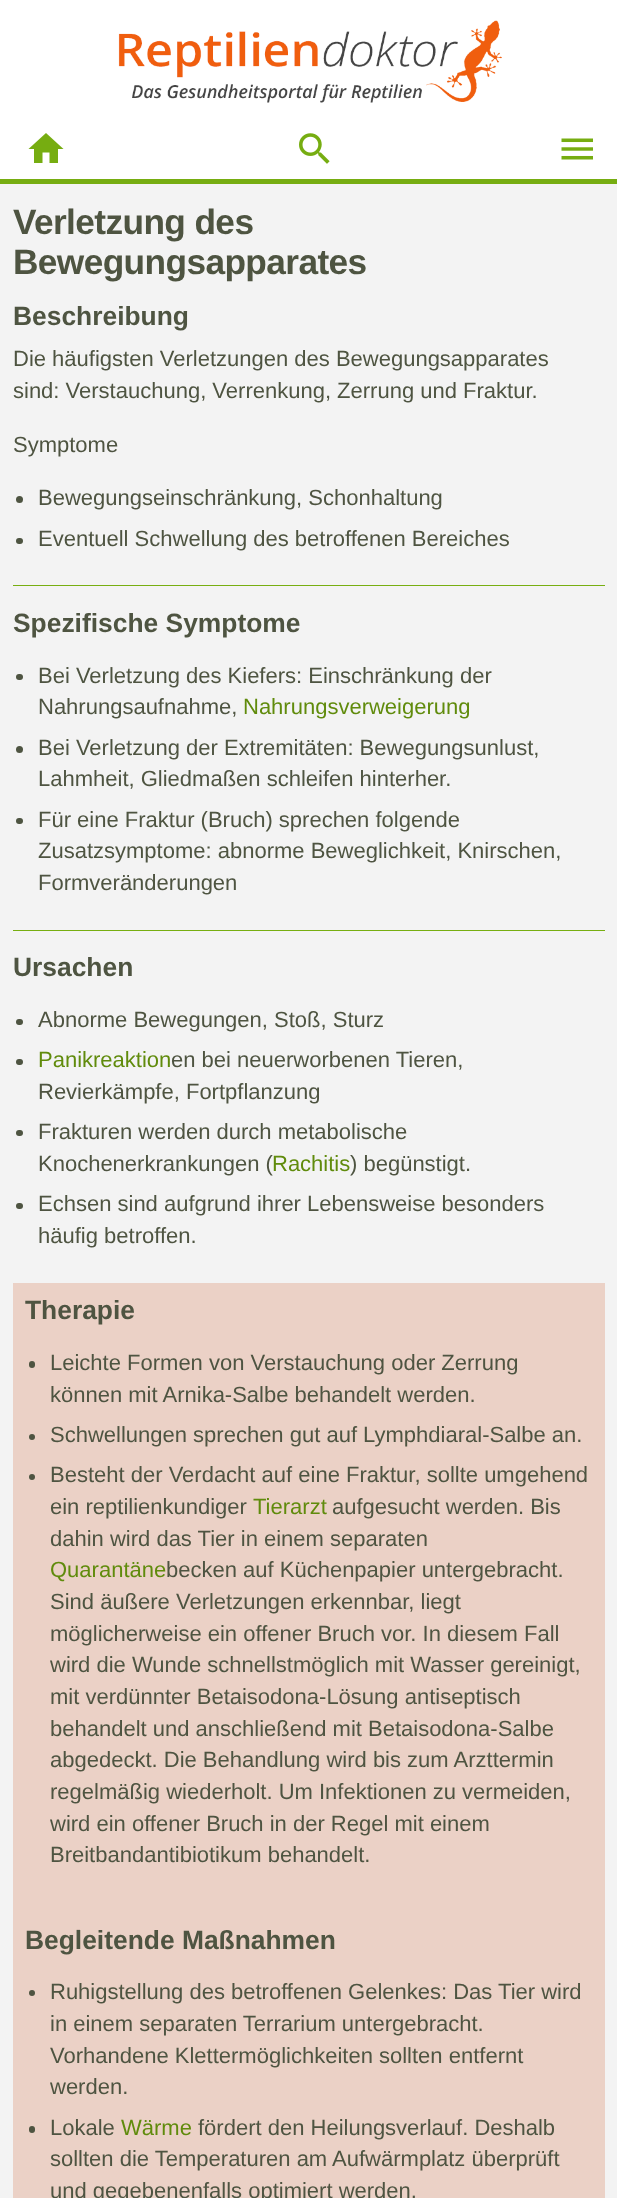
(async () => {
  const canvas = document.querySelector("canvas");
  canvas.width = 617;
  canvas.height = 2198;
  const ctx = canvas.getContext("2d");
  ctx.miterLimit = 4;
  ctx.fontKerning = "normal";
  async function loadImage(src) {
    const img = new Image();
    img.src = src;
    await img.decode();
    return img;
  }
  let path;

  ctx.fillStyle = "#ffffff";
  ctx.fillRect(0, 0, 617, 2198);
  ctx.drawImage(await loadImage("img/1.png"), 118, 20, 384, 83);
  ctx.fillStyle = "#76ad11";
  ctx.fillRect(0, 179, 617, 5);
  path = new Path2D("M42.5 163H34V149H28.5L46 133L63.5 149H58V163H49.5V152.5H42.5Z");
  ctx.fill(path);
  ctx.drawImage(await loadImage("img/2.png"), 299, 133, 31, 31);
  ctx.drawImage(await loadImage("img/3.png"), 561, 138, 32, 22);
  ctx.fillStyle = "#f3f3f3";
  ctx.fillRect(0, 184, 617, 2014);
  ctx.fillStyle = "#4e5441";
  ctx.beginPath();
  ctx.arc(19.5, 499.5, 3.5, 0, Math.PI * 2);
  ctx.fill();
  ctx.beginPath();
  ctx.roundRect(16, 538, 7, 6, 3);
  ctx.fill();
  ctx.fillStyle = "#77ae11";
  ctx.fillRect(13, 585, 592, 1);
  ctx.fillStyle = "#4e5441";
  ctx.beginPath();
  ctx.roundRect(16, 674, 7, 6, 3);
  ctx.fill();
  ctx.beginPath();
  ctx.arc(19.5, 749.5, 3.5, 0, Math.PI * 2);
  ctx.fill();
  ctx.beginPath();
  ctx.roundRect(16, 818, 7, 6, 3);
  ctx.fill();
  ctx.fillStyle = "#77ae11";
  ctx.fillRect(13, 930, 592, 1);
  ctx.fillStyle = "#4e5441";
  ctx.beginPath();
  ctx.roundRect(16, 1019, 7, 6, 3);
  ctx.fill();
  ctx.beginPath();
  ctx.roundRect(16, 1059, 7, 6, 3);
  ctx.fill();
  ctx.beginPath();
  ctx.roundRect(16, 1130, 7, 6, 3);
  ctx.fill();
  ctx.beginPath();
  ctx.roundRect(16, 1203, 7, 6, 3);
  ctx.fill();
  ctx.fillStyle = "#ebd1c6";
  ctx.fillRect(13, 1283, 592, 915);
  ctx.fillStyle = "#4e5441";
  ctx.beginPath();
  ctx.roundRect(29, 1361, 6, 7, 3);
  ctx.fill();
  ctx.beginPath();
  ctx.arc(32, 1437, 3, 0, Math.PI * 2);
  ctx.fill();
  ctx.beginPath();
  ctx.arc(32, 1477, 3, 0, Math.PI * 2);
  ctx.fill();
  ctx.beginPath();
  ctx.arc(32, 1993, 3, 0, Math.PI * 2);
  ctx.fill();
  ctx.beginPath();
  ctx.roundRect(29, 2126, 6, 7, 3);
  ctx.fill();
  ctx.letterSpacing = "-0.6px";
  ctx.font = "bold 35.25px Liberation Sans";
  ctx.fillText("Verletzung des", 13, 234);
  ctx.fillText("Bewegungsapparates", 13, 274);
  ctx.letterSpacing = "0px";
  ctx.font = "bold 26.4px Liberation Sans";
  ctx.fillText("Beschreibung", 13, 325);
  ctx.font = "22px Liberation Sans";
  for (const [text, x, y] of [
    ["Die häufigsten Verletzungen des Bewegungsapparates", 13, 366],
    ["sind: Verstauchung, Verrenkung, Zerrung und Fraktur.", 13, 398],
    ["Symptome", 13, 452],
    ["Bewegungseinschränkung, Schonhaltung", 38, 505],
    ["Eventuell Schwellung des betroffenen Bereiches", 38, 546],
  ]) {
    ctx.fillText(text, x, y);
  }
  ctx.font = "bold 26.4px Liberation Sans";
  ctx.fillText("Spezifische Symptome", 13, 632);
  ctx.font = "22px Liberation Sans";
  ctx.fillText("Bei Verletzung des Kiefers: Einschränkung der", 38, 683);
  ctx.fillText("Nahrungsaufnahme,", 38, 714);
  ctx.fillStyle = "#608b0c";
  ctx.fillText("Nahrungsverweigerung", 243, 714);
  ctx.fillStyle = "#4e5441";
  for (const [text, x, y] of [
    ["Bei Verletzung der Extremitäten: Bewegungsunlust,", 38, 755],
    ["Lahmheit, Gliedmaßen schleifen hinterher.", 38, 786],
    ["Für eine Fraktur (Bruch) sprechen folgende", 38, 827],
    ["Zusatzsymptome: abnorme Beweglichkeit, Knirschen,", 38, 858],
    ["Formveränderungen", 38, 890],
  ]) {
    ctx.fillText(text, x, y);
  }
  ctx.font = "bold 26.4px Liberation Sans";
  ctx.fillText("Ursachen", 13, 976);
  ctx.font = "22px Liberation Sans";
  ctx.fillText("Abnorme Bewegungen, Stoß, Sturz", 38, 1027);
  ctx.fillStyle = "#608b0c";
  ctx.fillText("Panikreaktion", 38, 1067);
  ctx.fillStyle = "#4e5441";
  for (const [text, x, y] of [
    ["en bei neuerworbenen Tieren,", 171, 1067],
    ["Revierkämpfe, Fortpflanzung", 38, 1099],
    ["Frakturen werden durch metabolische", 38, 1139],
    ["Knochenerkrankungen (", 38, 1171],
  ]) {
    ctx.fillText(text, x, y);
  }
  ctx.fillStyle = "#608b0c";
  ctx.fillText("Rachitis", 272, 1171);
  ctx.fillStyle = "#4e5441";
  for (const [text, x, y] of [
    [") begünstigt.", 350, 1171],
    ["Echsen sind aufgrund ihrer Lebensweise besonders", 38, 1211],
    ["häufig betroffen.", 38, 1243],
  ]) {
    ctx.fillText(text, x, y);
  }
  ctx.font = "bold 26.4px Liberation Sans";
  ctx.fillText("Therapie", 25, 1319);
  ctx.font = "22px Liberation Sans";
  for (const [text, x, y] of [
    ["Leichte Formen von Verstauchung oder Zerrung", 50, 1370],
    ["können mit Arnika-Salbe behandelt werden.", 50, 1402],
    ["Schwellungen sprechen gut auf Lymphdiaral-Salbe an.", 50, 1442],
    ["Besteht der Verdacht auf eine Fraktur, sollte umgehend", 50, 1482],
    ["ein reptilienkundiger", 50, 1514],
  ]) {
    ctx.fillText(text, x, y);
  }
  ctx.fillStyle = "#608b0c";
  ctx.fillText("Tierarzt", 253, 1514);
  ctx.fillStyle = "#4e5441";
  ctx.fillText("aufgesucht werden. Bis", 332, 1514);
  ctx.fillText("dahin wird das Tier in einem separaten", 50, 1546);
  ctx.fillStyle = "#608b0c";
  ctx.fillText("Quarantäne", 50, 1577);
  ctx.fillStyle = "#4e5441";
  for (const [text, x, y] of [
    ["becken auf Küchenpapier untergebracht.", 166, 1577],
    ["Sind äußere Verletzungen erkennbar, liegt", 50, 1609],
    ["möglicherweise ein offener Bruch vor. In diesem Fall", 50, 1641],
    ["wird die Wunde schnellstmöglich mit Wasser gereinigt,", 50, 1672],
    ["mit verdünnter Betaisodona-Lösung antiseptisch", 50, 1704],
    ["behandelt und anschließend mit Betaisodona-Salbe", 50, 1736],
    ["abgedeckt. Die Behandlung wird bis zum Arzttermin", 50, 1767],
    ["regelmäßig wiederholt. Um Infektionen zu vermeiden,", 50, 1799],
    ["wird ein offener Bruch in der Regel mit einem", 50, 1831],
    ["Breitbandantibiotikum behandelt.", 50, 1862],
  ]) {
    ctx.fillText(text, x, y);
  }
  ctx.font = "bold 26.4px Liberation Sans";
  ctx.fillText("Begleitende Maßnahmen", 25, 1949);
  ctx.font = "22px Liberation Sans";
  for (const [text, x, y] of [
    ["Ruhigstellung des betroffenen Gelenkes: Das Tier wird", 50, 1999],
    ["in einem separaten Terrarium untergebracht.", 50, 2031],
    ["Vorhandene Klettermöglichkeiten sollten entfernt", 50, 2063],
    ["werden.", 50, 2094],
    ["Lokale", 50, 2135],
  ]) {
    ctx.fillText(text, x, y);
  }
  ctx.fillStyle = "#608b0c";
  ctx.fillText("Wärme", 121, 2135);
  ctx.fillStyle = "#4e5441";
  for (const [text, x, y] of [
    ["fördert den Heilungsverlauf. Deshalb", 198, 2135],
    ["sollten die Temperaturen am Aufwärmplatz überprüft", 50, 2166],
    ["und gegebenenfalls optimiert werden.", 50, 2198],
  ]) {
    ctx.fillText(text, x, y);
  }
})();
